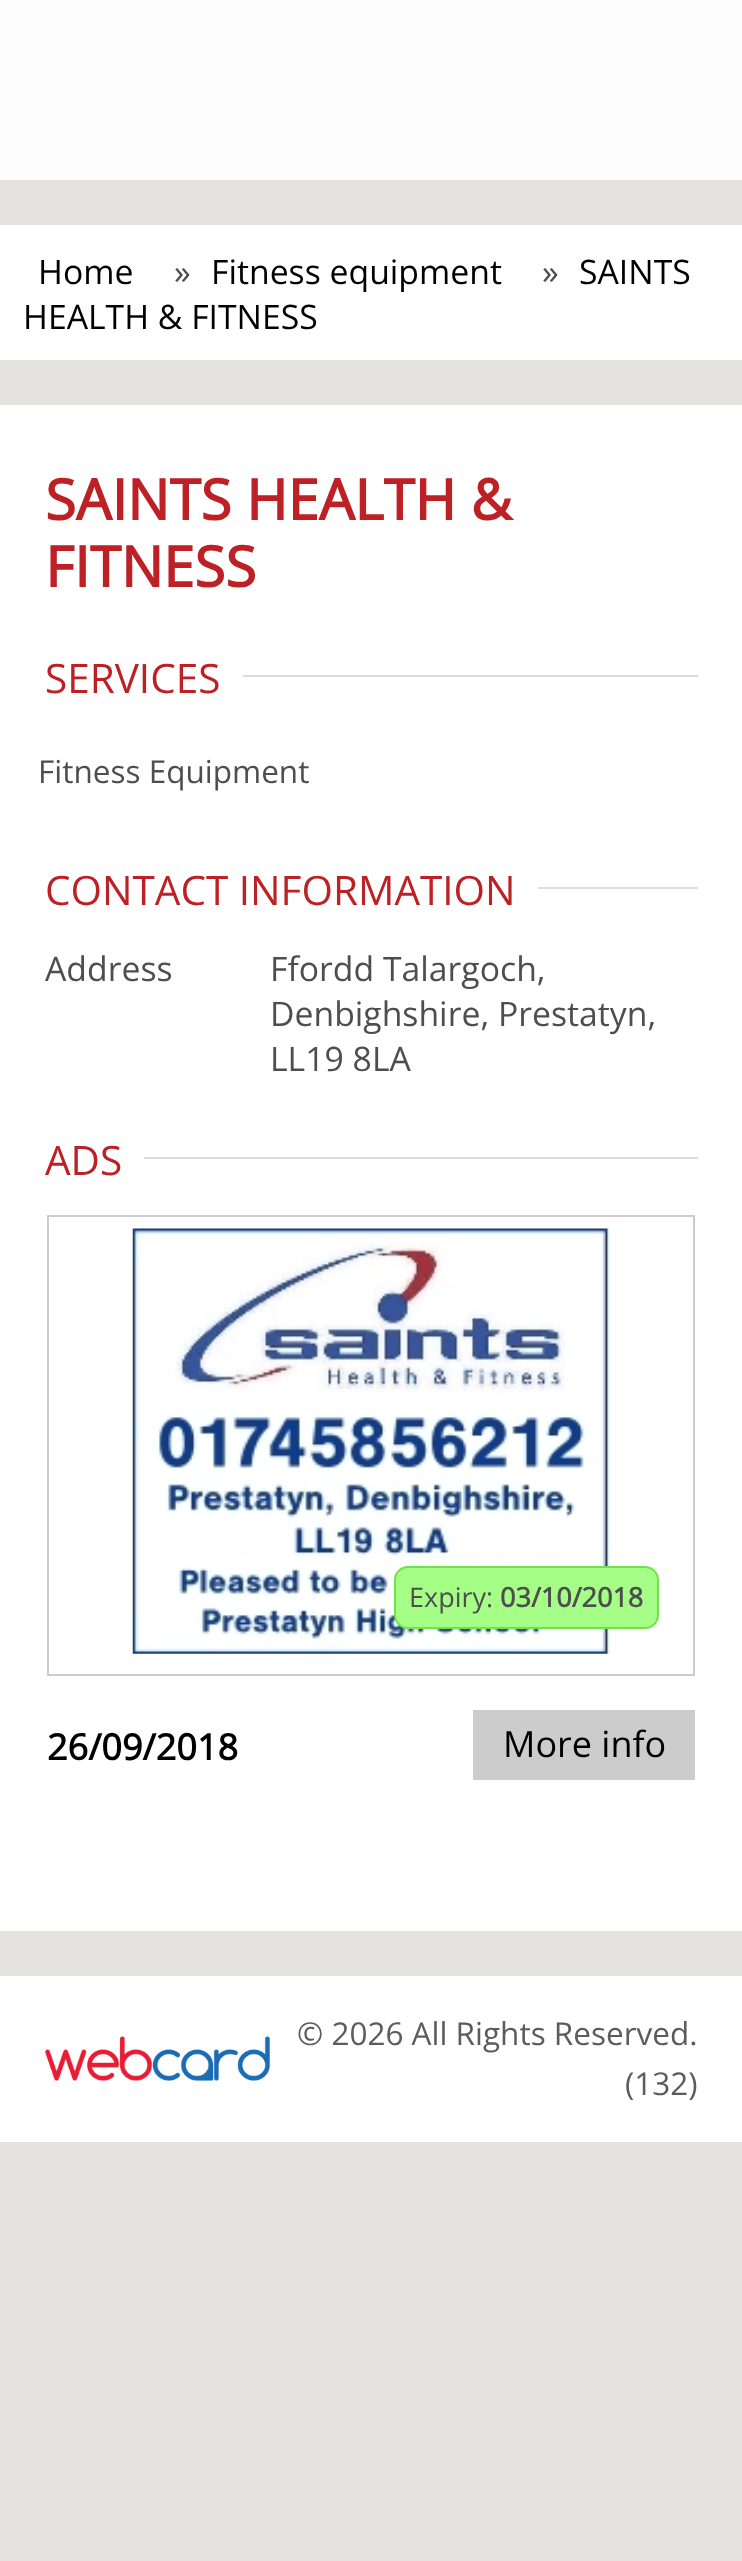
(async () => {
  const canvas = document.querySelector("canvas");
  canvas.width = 742;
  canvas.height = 2561;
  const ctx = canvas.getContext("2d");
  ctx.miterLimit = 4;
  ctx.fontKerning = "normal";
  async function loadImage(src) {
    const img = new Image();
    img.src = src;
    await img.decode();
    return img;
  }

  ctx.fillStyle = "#e5e3df";
  ctx.fillRect(0, 0, 742, 2561);
  for (const [x, y, w, h, color] of [
    [0, 0, 742, 180, "#fdfdfd"],
    [0, 225, 742, 135, "#ffffff"],
    [0, 405, 742, 1526, "#ffffff"],
    [243, 675, 455, 2, "#dcdcdc"],
    [538, 887, 160, 2, "#dcdcdc"],
    [144, 1157, 554, 2, "#dcdcdc"],
  ]) {
    ctx.fillStyle = color;
    ctx.fillRect(x, y, w, h);
  }
  ctx.strokeStyle = "#cccccc";
  ctx.lineWidth = 2;
  ctx.strokeRect(48, 1216, 646, 459);
  ctx.drawImage(await loadImage("img/1.png"), 132, 1228, 478, 426);
  ctx.fillStyle = "#a5ff87";
  ctx.beginPath();
  ctx.roundRect(395, 1567, 263, 61, 13);
  ctx.fill();
  ctx.strokeStyle = "#72e24c";
  ctx.stroke();
  ctx.fillStyle = "#cccccc";
  ctx.fillRect(473, 1710, 222, 70);
  ctx.fillStyle = "#ffffff";
  ctx.fillRect(0, 1976, 742, 166);
  ctx.drawImage(await loadImage("img/2.png"), 45, 2036, 225, 45);
  ctx.font = "33.75px Open Sans";
  ctx.fillStyle = "#000000";
  ctx.fillText("Home", 38, 284);
  ctx.fillStyle = "#4e4e4e";
  ctx.fillText("»", 174, 284);
  ctx.fillStyle = "#000000";
  ctx.fillText("Fitness equipment", 211, 284);
  ctx.fillStyle = "#4e4e4e";
  ctx.fillText("»", 542, 284);
  ctx.fillStyle = "#000000";
  ctx.fillText("SAINTS", 579, 284);
  ctx.fillText("HEALTH & FITNESS", 23, 329);
  ctx.font = "bold 56.25px Open Sans";
  ctx.fillStyle = "#bd2125";
  ctx.fillText("SAINTS HEALTH &", 45, 520);
  ctx.fillText("FITNESS", 45, 587);
  ctx.font = "40.5px Open Sans";
  ctx.fillText("SERVICES", 45, 693);
  ctx.font = "31.5px Open Sans";
  ctx.fillStyle = "#4e4e4e";
  ctx.fillText("Fitness Equipment", 38, 783);
  ctx.font = "40.5px Open Sans";
  ctx.fillStyle = "#bd2125";
  ctx.fillText("CONTACT INFORMATION", 45, 905);
  ctx.font = "33.75px Open Sans";
  ctx.fillStyle = "#4e4e4e";
  for (const [text, x, y] of [
    ["Address", 45, 981],
    ["Ffordd Talargoch,", 270, 981],
    ["Denbighshire, Prestatyn,", 270, 1026],
    ["LL19 8LA", 270, 1071],
  ]) {
    ctx.fillText(text, x, y);
  }
  ctx.font = "40.5px Open Sans";
  ctx.fillStyle = "#bd2125";
  ctx.fillText("ADS", 45, 1175);
  ctx.font = "27px Open Sans";
  ctx.fillStyle = "#4e4e4e";
  ctx.fillText("Expiry:", 409, 1607);
  ctx.font = "bold 27px Open Sans";
  ctx.fillText("03/10/2018", 500, 1607);
  ctx.font = "bold 36px Open Sans";
  ctx.fillStyle = "#000000";
  ctx.fillText("26/09/2018", 47, 1760);
  ctx.font = "36px Open Sans";
  ctx.fillText("More info", 503, 1757);
  ctx.font = "31.5px Open Sans";
  ctx.fillStyle = "#5c5c5c";
  ctx.fillText("© 2026 All Rights Reserved.", 297, 2045);
  ctx.fillText("(132)", 625, 2095);
})();
